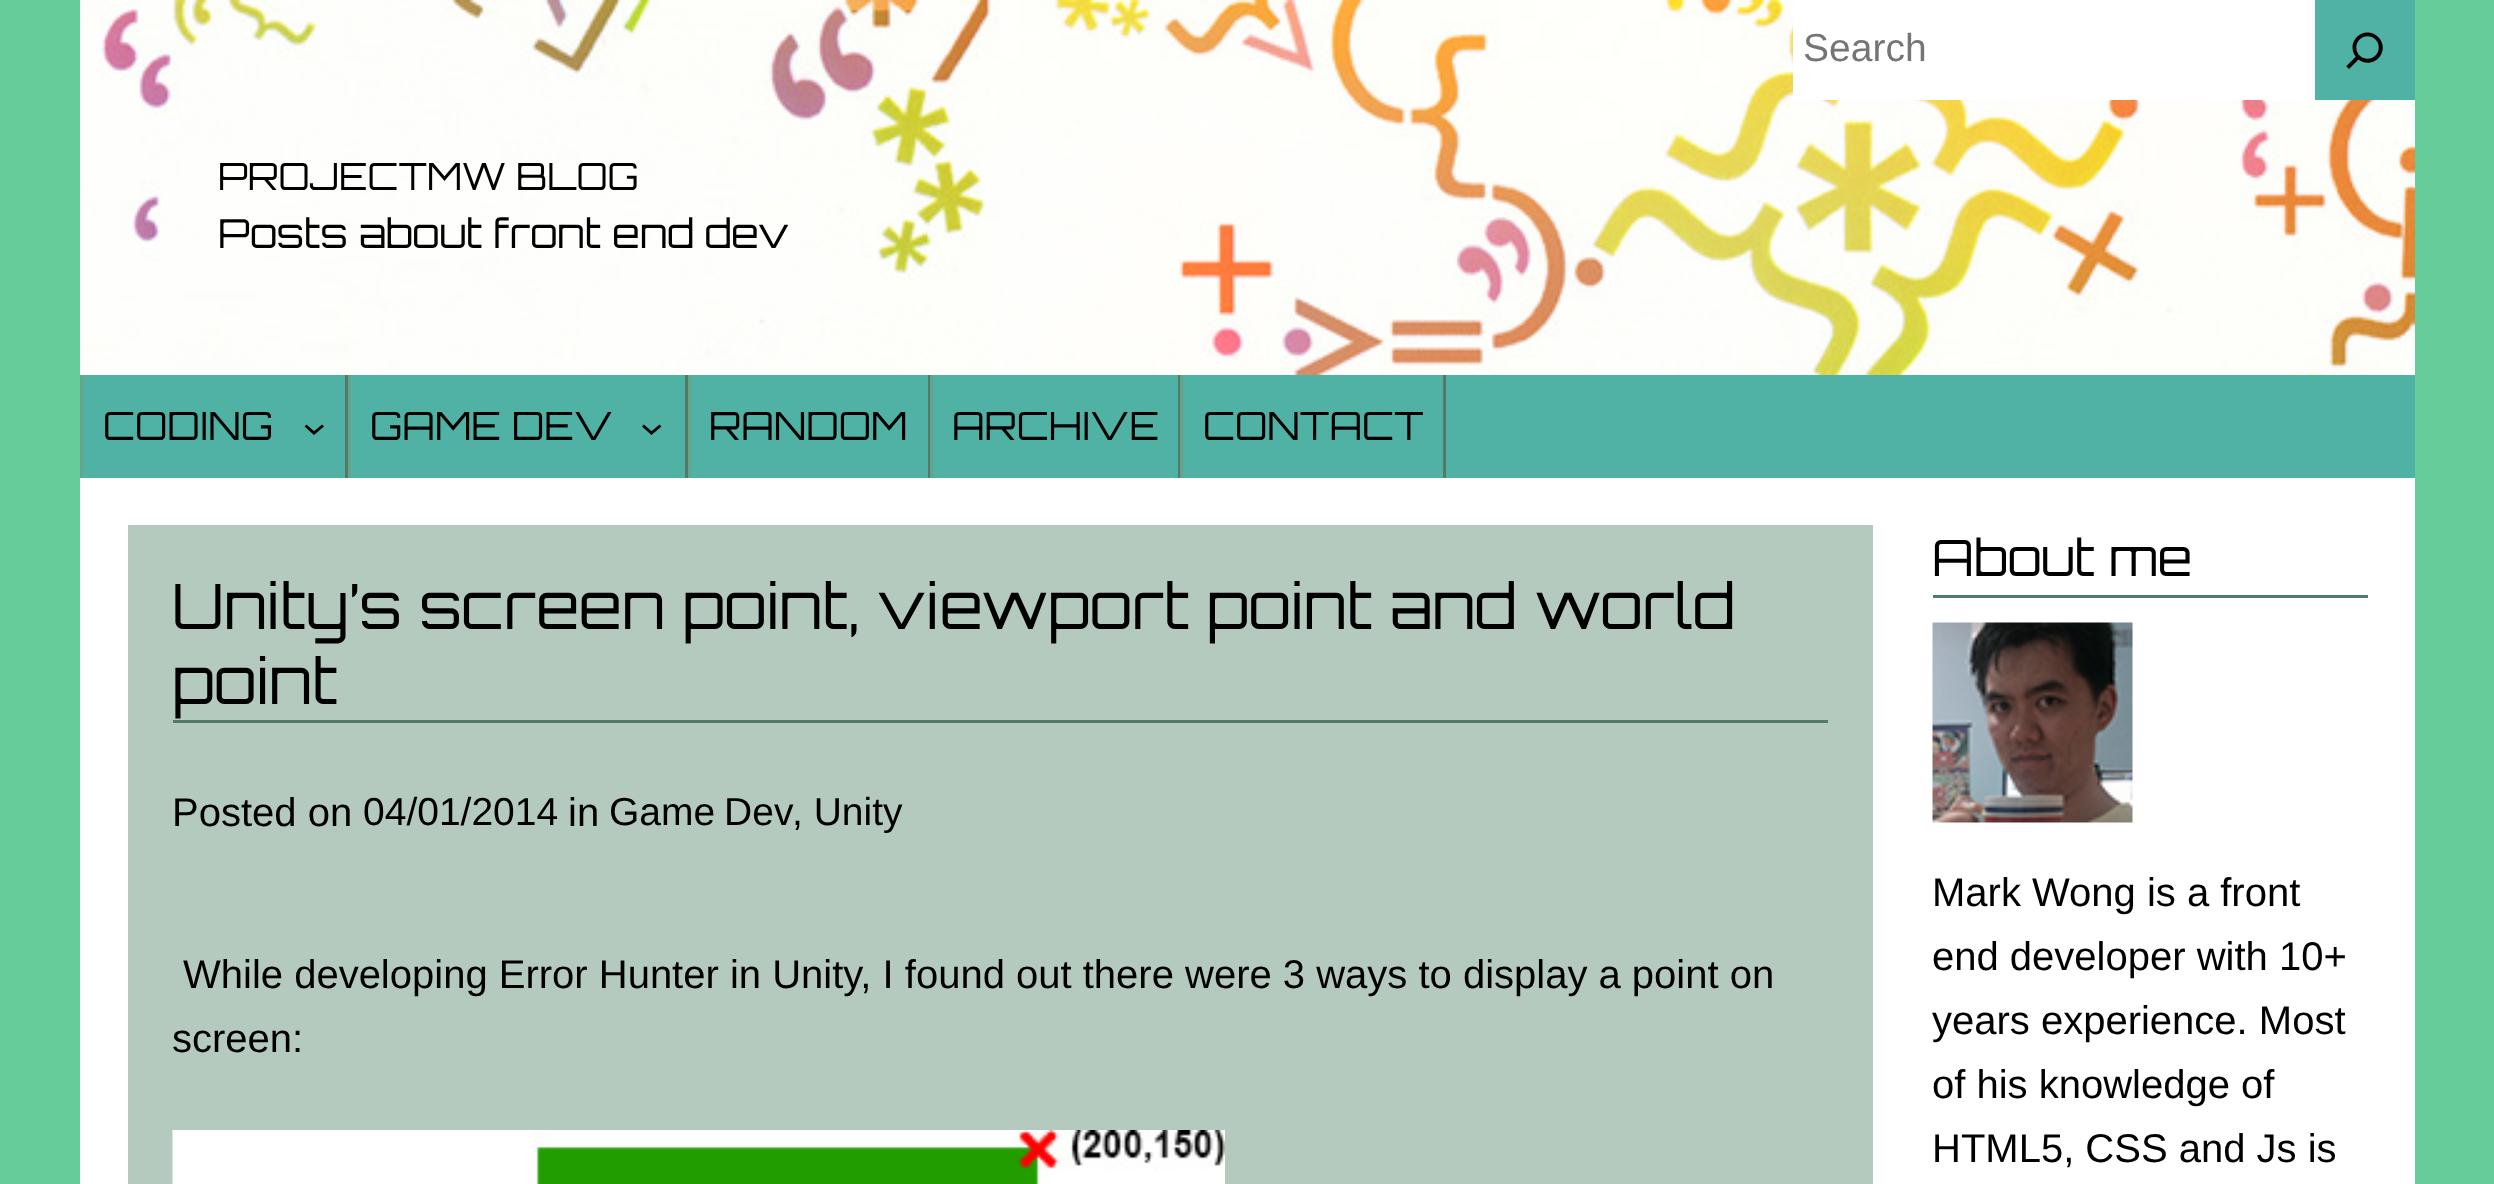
(async () => {
  const canvas = document.querySelector("canvas");
  canvas.width = 2494;
  canvas.height = 1184;
  const ctx = canvas.getContext("2d");
  ctx.miterLimit = 4;
  ctx.fontKerning = "normal";
  async function loadImage(src) {
    const img = new Image();
    img.src = src;
    await img.decode();
    return img;
  }
  let path;

  ctx.fillStyle = "#66cc99";
  ctx.fillRect(0, 0, 2494, 1184);
  ctx.drawImage(await loadImage("img/1.png"), 80, 0, 2335, 375);
  ctx.fillStyle = "#ffffff";
  ctx.fillRect(1793, 0, 522, 100);
  ctx.fillStyle = "#50b1a5";
  ctx.fillRect(2315, 0, 100, 100);
  ctx.drawImage(await loadImage("img/2.png"), 2346, 32, 37, 37);
  for (const [x, y, w, h, color] of [
    [83, 375, 2332, 103, "#50b1a5"],
    [345, 375, 3, 103, "#527a69"],
    [80, 375, 3, 103, "#65a48a"],
  ]) {
    ctx.fillStyle = color;
    ctx.fillRect(x, y, w, h);
  }
  path = new Path2D("M305.5 425.5L314 433L323 425.5");
  ctx.strokeStyle = "#000000";
  ctx.lineWidth = 2.9;
  ctx.stroke(path);
  ctx.fillStyle = "#527a69";
  ctx.fillRect(685, 375, 3, 103);
  ctx.fillStyle = "#65a48a";
  ctx.fillRect(348, 375, 3, 103);
  path = new Path2D("M643 425.5L651.5 433L660.5 425.5");
  ctx.stroke(path);
  for (const [x, y, w, h, color] of [
    [928, 375, 2, 103, "#527a69"],
    [688, 375, 3, 103, "#65a48a"],
    [1178, 375, 2, 103, "#527a69"],
    [930, 375, 3, 103, "#65a48a"],
    [1443, 375, 3, 103, "#527a69"],
    [1180, 375, 3, 103, "#65a48a"],
    [80, 478, 2335, 706, "#ffffff"],
    [128, 525, 1745, 659, "#b4cabe"],
    [173, 720, 1655, 3, "#527a69"],
  ]) {
    ctx.fillStyle = color;
    ctx.fillRect(x, y, w, h);
  }
  ctx.drawImage(await loadImage("img/3.png"), 172, 1130, 1053, 54);
  ctx.fillRect(1933, 595, 435, 3);
  ctx.drawImage(await loadImage("img/4.png"), 1932, 622, 201, 201);
  ctx.font = "39px Liberation Sans";
  ctx.fillStyle = "#757575";
  ctx.fillText("Search", 1803, 61);
  ctx.font = "37.5px Orbitron";
  ctx.fillStyle = "#000000";
  ctx.fillText("PROJECTMW BLOG", 218, 190);
  ctx.font = "40px Orbitron";
  ctx.fillText("Posts about front end dev", 218, 248);
  ctx.font = "39px Orbitron";
  for (const [text, x, y] of [
    ["CODING", 103, 440],
    ["GAME DEV", 370, 440],
    ["RANDOM", 709, 440],
    ["ARCHIVE", 952, 440],
    ["CONTACT", 1203, 440],
  ]) {
    ctx.fillText(text, x, y);
  }
  ctx.font = "62.5px Orbitron";
  ctx.fillText("Unity’s screen point, viewport point and world", 172, 629);
  ctx.fillText("point", 172, 704);
  ctx.font = "40px Liberation Sans";
  ctx.fillText("Posted on", 172, 826);
  ctx.font = "39px Liberation Sans";
  ctx.fillText("04/01/2014", 363, 825);
  ctx.font = "40px Liberation Sans";
  ctx.fillText("in", 568, 826);
  ctx.wordSpacing = "-2px";
  ctx.font = "39px Liberation Sans";
  ctx.fillText("Game Dev", 609, 825);
  ctx.wordSpacing = "0px";
  ctx.fillText(", Unity", 792, 825);
  ctx.font = "40px Liberation Sans";
  ctx.fillText("While developing Error Hunter in Unity, I found out there were 3 ways to display a point on", 183, 988);
  ctx.fillText("screen:", 172, 1052);
  ctx.font = "50px Orbitron";
  ctx.fillText("About me", 1932, 576);
  ctx.font = "40px Liberation Sans";
  for (const [text, x, y] of [
    ["Mark Wong is a front", 1932, 906],
    ["end developer with 10+", 1932, 970],
    ["years experience. Most", 1932, 1034],
    ["of his knowledge of", 1932, 1098],
    ["HTML5, CSS and Js is", 1932, 1162],
  ]) {
    ctx.fillText(text, x, y);
  }
})();
